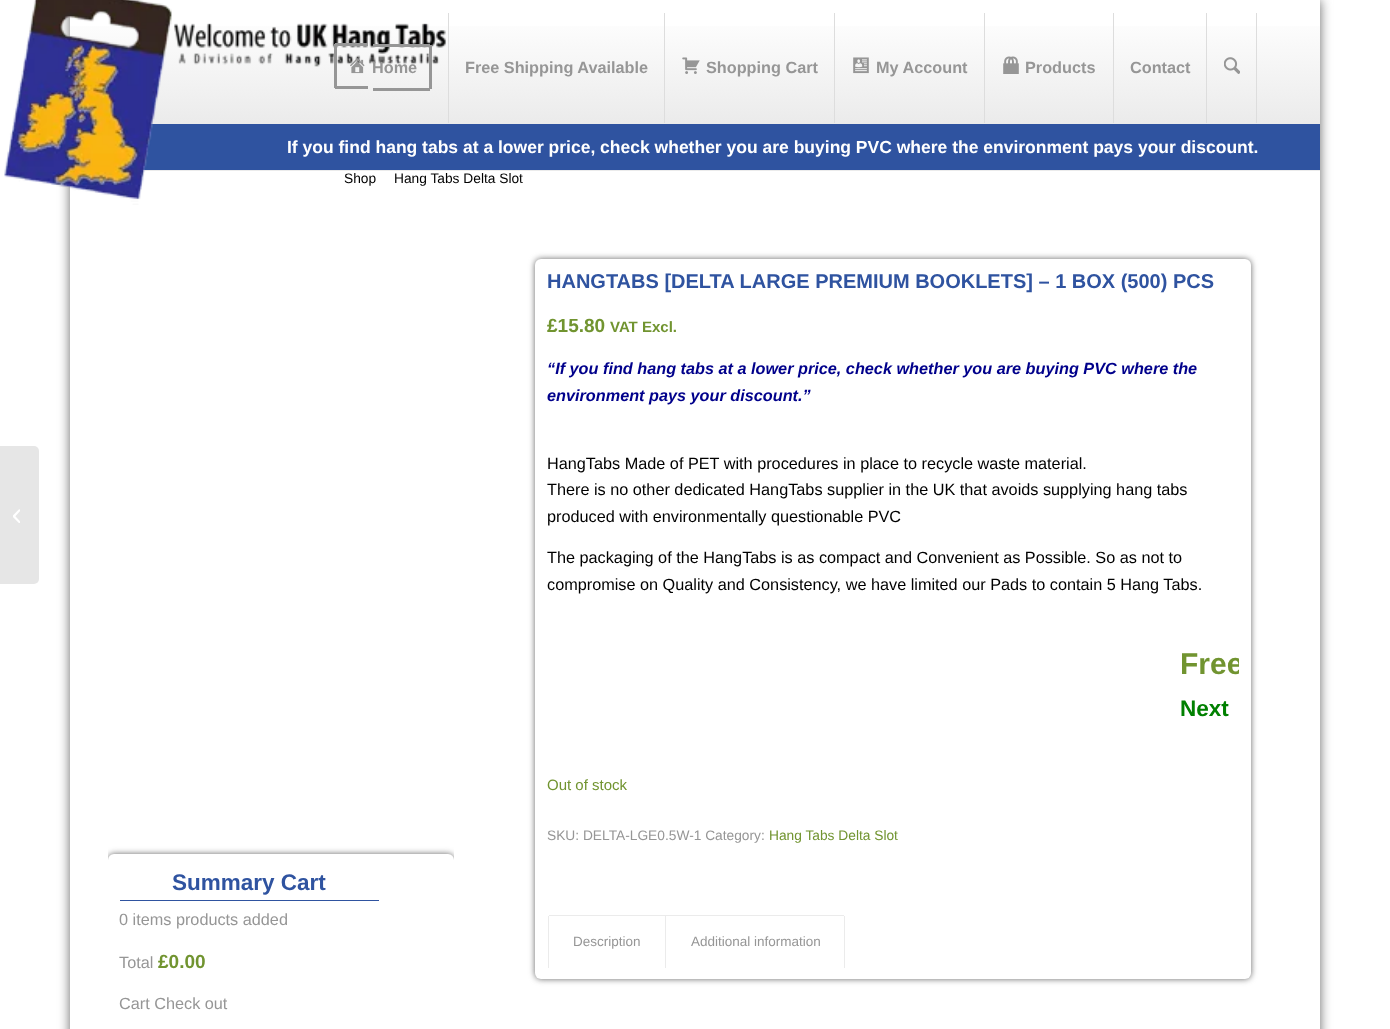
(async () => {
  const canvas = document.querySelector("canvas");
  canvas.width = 1390;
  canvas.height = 1029;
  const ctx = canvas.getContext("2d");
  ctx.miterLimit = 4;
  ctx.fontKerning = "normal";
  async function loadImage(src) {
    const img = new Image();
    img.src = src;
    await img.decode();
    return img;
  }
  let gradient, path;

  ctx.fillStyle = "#ffffff";
  ctx.fillRect(0, 0, 1390, 1029);
  ctx.save();
  path = new Path2D("M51 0H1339V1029H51ZM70 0H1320V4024H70Z");
  ctx.clip(path, "evenodd");
  ctx.fillStyle = "#666666";
  ctx.filter = "blur(6px)";
  ctx.beginPath();
  ctx.rect(70, 0, 1250, 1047);
  ctx.fill();
  ctx.filter = "none";
  ctx.restore();
  ctx.fillStyle = "#ebebeb";
  ctx.fillRect(92, 123, 1228, 1);
  gradient = ctx.createLinearGradient(695, 12, 695, 123);
  gradient.addColorStop(0, "#ffffff");
  gradient.addColorStop(1, "#ebebeb");
  ctx.fillStyle = gradient;
  ctx.fillRect(70, 26, 1250, 97);
  for (const [x, y, w, h, color] of [
    [448, 13, 1, 110, "#dddddd"],
    [664, 13, 1, 110, "#dddddd"],
    [834, 13, 1, 110, "#dddddd"],
  ]) {
    ctx.fillStyle = color;
    ctx.fillRect(x, y, w, h);
  }
  ctx.drawImage(await loadImage("img/3.png"), 682, 57, 18, 17);
  ctx.fillRect(984, 13, 1, 110);
  ctx.drawImage(await loadImage("img/4.png"), 853, 57, 16, 17);
  ctx.fillRect(1113, 13, 1, 110);
  ctx.drawImage(await loadImage("img/5.png"), 1003, 56, 16, 18);
  ctx.fillRect(1206, 13, 1, 110);
  ctx.fillRect(1256, 13, 1, 110);
  ctx.drawImage(await loadImage("img/6.png"), 1224, 57, 16, 17);
  ctx.fillStyle = "#e6e6e6";
  ctx.beginPath();
  ctx.roundRect(0, 446, 39, 138, [0, 5, 5, 0]);
  ctx.fill();
  ctx.drawImage(await loadImage("img/7.png"), 13, 509, 7, 14);
  ctx.fillStyle = "#2f53a0";
  ctx.fillRect(73, 124, 1247, 46);
  ctx.fillStyle = "#ebebeb";
  ctx.fillRect(143, 170, 1177, 1);
  ctx.save();
  ctx.beginPath();
  ctx.rect(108, 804, 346, 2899);
  ctx.clip();
  ctx.fillStyle = "#666666";
  ctx.filter = "blur(3px)";
  ctx.beginPath();
  ctx.roundRect(108, 854, 346, 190, 6);
  ctx.fill();
  ctx.filter = "none";
  ctx.restore();
  ctx.fillStyle = "#ffffff";
  ctx.beginPath();
  ctx.roundRect(108, 854, 346, 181, 6);
  ctx.fill();
  ctx.fillStyle = "#2f53a0";
  ctx.fillRect(120, 900, 259, 1);
  ctx.fillStyle = "#666666";
  ctx.filter = "blur(3px)";
  ctx.beginPath();
  ctx.roundRect(535, 259, 716, 720, 6);
  ctx.fill();
  ctx.filter = "none";
  ctx.fillStyle = "#ffffff";
  ctx.beginPath();
  ctx.roundRect(535, 259, 716, 720, 6);
  ctx.fill();
  for (const [x, y, w, h, color] of [
    [549, 915, 117, 1, "#ebebeb"],
    [665, 915, 1, 53, "#ebebeb"],
    [548, 916, 1, 52, "#ebebeb"],
    [665, 915, 179, 1, "#ebebeb"],
    [844, 916, 1, 52, "#ebebeb"],
  ]) {
    ctx.fillStyle = color;
    ctx.fillRect(x, y, w, h);
  }
  ctx.font = "bold 16.25px Liberation Sans";
  ctx.fillStyle = "#969696";
  for (const [text, x, y] of [
    ["Free Shipping Available", 465, 73],
    ["Shopping Cart", 706, 73],
    ["My Account", 876, 73],
    ["Products", 1025, 73],
    ["Contact", 1130, 73],
  ]) {
    ctx.fillText(text, x, y);
  }
  ctx.font = "bold 17.5px Liberation Sans";
  ctx.fillStyle = "#ffffff";
  ctx.fillText("If you find hang tabs at a lower price, check whether you are buying PVC where the environment pays your discount.", 287, 153);
  ctx.font = "13.75px Liberation Sans";
  ctx.fillStyle = "#000000";
  ctx.fillText("Shop", 344, 183);
  ctx.fillText("Hang Tabs Delta Slot", 394, 183);
  ctx.drawImage(await loadImage("img/1.png"), 4, 0, 442, 205);
  ctx.font = "bold 16.25px Liberation Sans";
  ctx.fillStyle = "#969696";
  ctx.fillText("Home", 372, 73);
  ctx.drawImage(await loadImage("img/2.png"), 350, 58, 15, 16);
  for (const [x, y, w, h, color] of [
    [373, 44, 57, 3, "#969696"],
    [429, 45, 3, 44, "#969696"],
    [373, 88, 57, 3, "#969696"],
    [335, 86, 33, 3, "#969696"],
    [335, 43, 33, 3, "#969696"],
    [334, 44, 3, 44, "#969696"],
  ]) {
    ctx.fillStyle = color;
    ctx.fillRect(x, y, w, h);
  }
  ctx.font = "bold 22.5px Liberation Sans";
  ctx.fillStyle = "#2f53a0";
  ctx.fillText("Summary Cart", 172, 890);
  ctx.font = "16.25px Liberation Sans";
  ctx.fillStyle = "#969696";
  ctx.fillText("0 items products added", 119, 925);
  ctx.fillText("Total", 119, 968);
  ctx.font = "bold 19px Liberation Sans";
  ctx.fillStyle = "#719430";
  ctx.fillText("£0.00", 158, 968);
  ctx.font = "16.25px Liberation Sans";
  ctx.fillStyle = "#969696";
  ctx.fillText("Cart Check out", 119, 1009);
  ctx.font = "bold 20px Liberation Sans";
  ctx.fillStyle = "#2f53a0";
  ctx.fillText("HANGTABS [DELTA LARGE PREMIUM BOOKLETS] – 1 BOX (500) PCS", 547, 288);
  ctx.font = "bold 19px Liberation Sans";
  ctx.fillStyle = "#719430";
  ctx.fillText("£15.80", 547, 332);
  ctx.font = "bold 15px Liberation Sans";
  ctx.fillText("VAT Excl.", 610, 332);
  ctx.font = "italic bold 16.25px Liberation Sans";
  ctx.fillStyle = "#00008b";
  ctx.fillText("“If you find hang tabs at a lower price, check whether you are buying PVC where the", 547, 374);
  ctx.fillText("environment pays your discount.”", 547, 401);
  ctx.font = "16.25px Liberation Sans";
  ctx.fillStyle = "#000000";
  for (const [text, x, y] of [
    ["HangTabs Made of PET with procedures in place to recycle waste material.", 547, 469],
    ["There is no other dedicated HangTabs supplier in the UK that avoids supplying hang tabs", 547, 495],
    ["produced with environmentally questionable PVC", 547, 522],
    ["The packaging of the HangTabs is as compact and Convenient as Possible. So as not to", 547, 563],
    ["compromise on Quality and Consistency, we have limited our Pads to contain 5 Hang Tabs.", 547, 590],
  ]) {
    ctx.fillText(text, x, y);
  }
  ctx.save();
  ctx.beginPath();
  ctx.rect(548, 650, 691, 93);
  ctx.clip();
  ctx.font = "bold 30px Liberation Sans";
  ctx.fillStyle = "#719430";
  ctx.fillText("Free", 1180, 674);
  ctx.restore();
  ctx.font = "bold 22.5px Liberation Sans";
  ctx.fillStyle = "#008000";
  ctx.fillText("Next", 1180, 716);
  ctx.font = "15px Liberation Sans";
  ctx.fillStyle = "#719430";
  ctx.fillText("Out of stock", 547, 790);
  ctx.font = "13.75px Liberation Sans";
  ctx.fillStyle = "#969696";
  ctx.fillText("SKU: DELTA-LGE0.5W-1 Category:", 547, 840);
  ctx.fillStyle = "#719430";
  ctx.fillText("Hang Tabs Delta Slot", 769, 840);
  ctx.font = "13.5px Liberation Sans";
  ctx.fillStyle = "#969696";
  ctx.fillText("Description", 573, 946);
  ctx.fillText("Additional information", 691, 946);
})();
